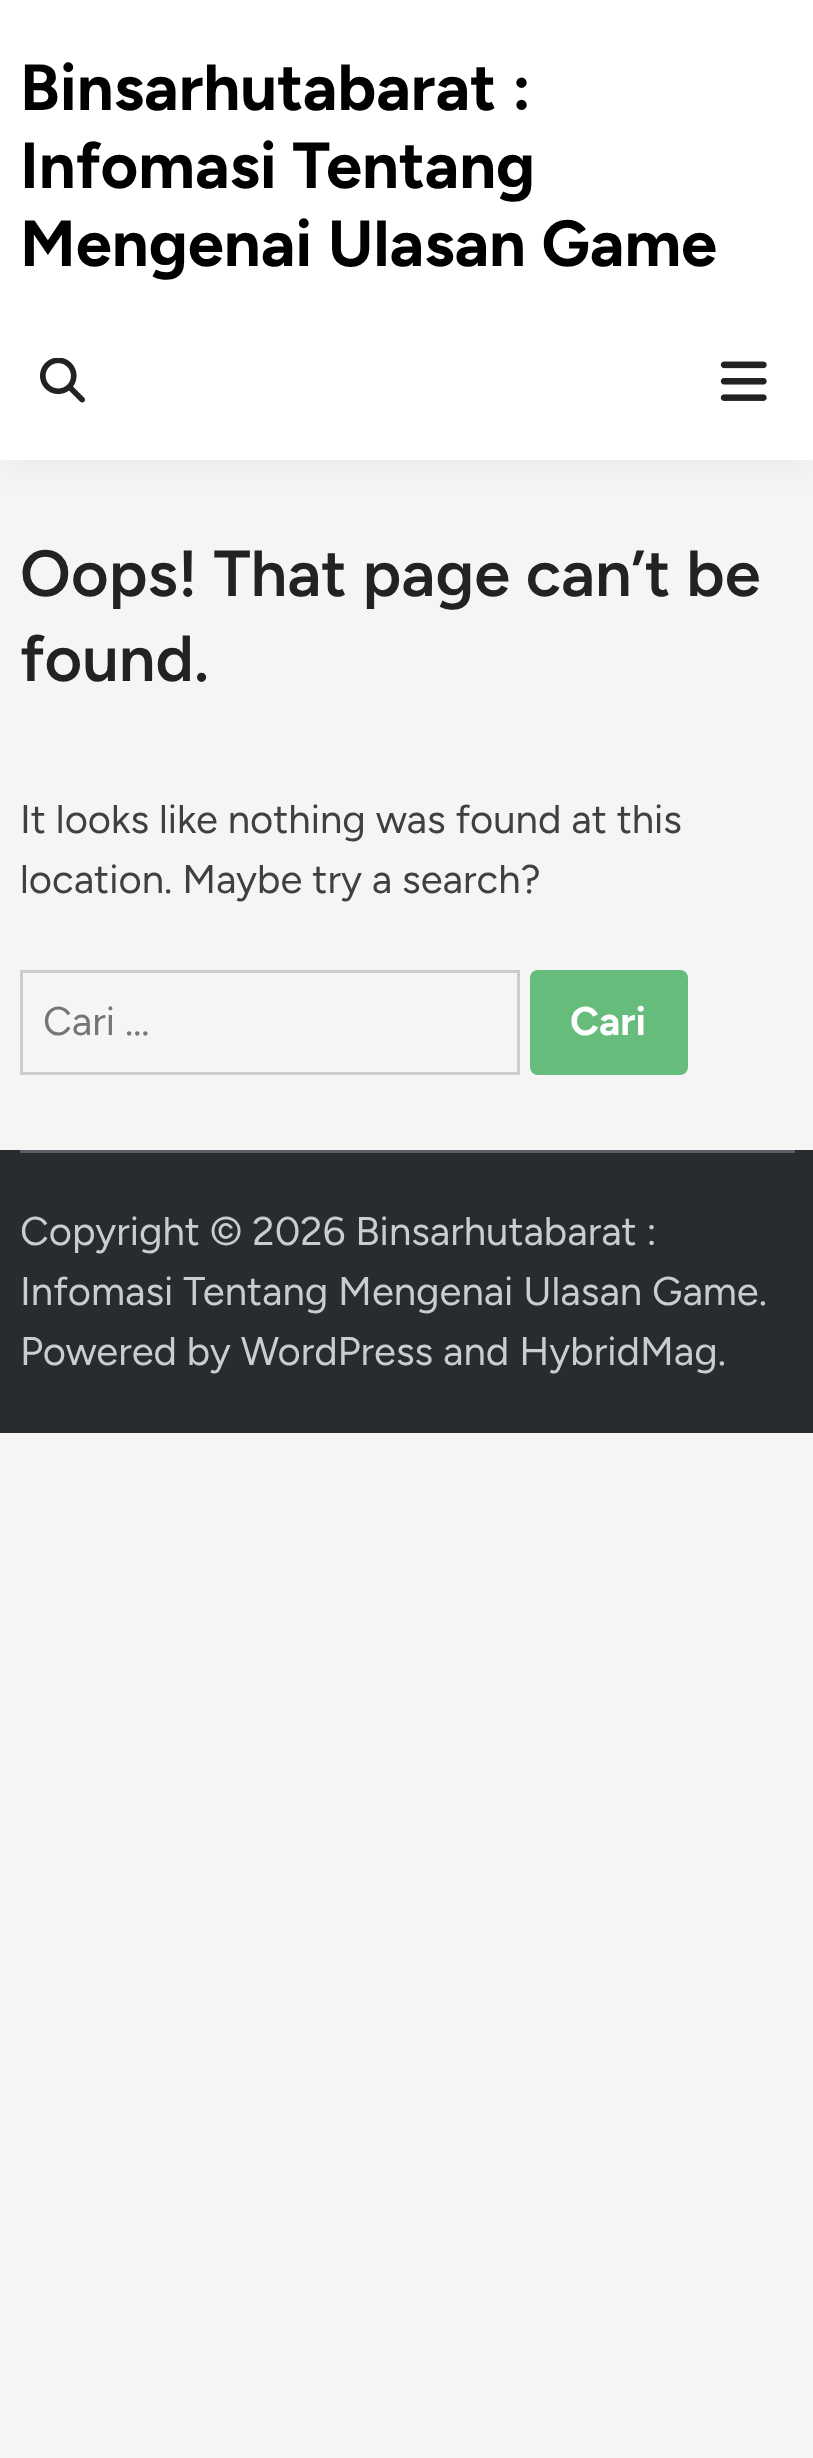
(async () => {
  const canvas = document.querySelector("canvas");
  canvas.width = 813;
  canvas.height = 2458;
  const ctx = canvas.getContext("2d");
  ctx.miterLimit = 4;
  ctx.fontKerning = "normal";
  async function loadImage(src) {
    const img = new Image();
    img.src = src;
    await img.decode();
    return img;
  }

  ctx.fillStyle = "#f5f5f5";
  ctx.fillRect(0, 0, 813, 2458);
  ctx.fillStyle = "rgba(0, 0, 0, 0.06)";
  ctx.filter = "blur(19px)";
  ctx.beginPath();
  ctx.rect(0, 0, 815, 460);
  ctx.fill();
  ctx.filter = "none";
  ctx.fillStyle = "#ffffff";
  ctx.fillRect(0, 0, 813, 460);
  ctx.drawImage(await loadImage("img/1.png"), 40, 358, 45, 45);
  ctx.drawImage(await loadImage("img/2.png"), 720, 361, 47, 40);
  ctx.strokeStyle = "#cccccc";
  ctx.lineWidth = 3;
  ctx.strokeRect(21.5, 971.5, 497, 102);
  ctx.fillStyle = "#65bc7b";
  ctx.beginPath();
  ctx.roundRect(530, 970, 158, 105, 8);
  ctx.fill();
  ctx.fillStyle = "#272c30";
  ctx.fillRect(0, 1150, 813, 283);
  ctx.fillStyle = "#595f64";
  ctx.fillRect(20, 1150, 775, 3);
  ctx.font = "bold 65px Figtree";
  ctx.fillStyle = "#000000";
  for (const [text, x, y] of [
    ["Binsarhutabarat :", 20, 110],
    ["Infomasi Tentang", 20, 188],
    ["Mengenai Ulasan Game", 20, 266],
  ]) {
    ctx.fillText(text, x, y);
  }
  ctx.font = "600 65px Figtree";
  ctx.fillStyle = "#222222";
  ctx.fillText("Oops! That page can’t be", 20, 596);
  ctx.fillText("found.", 20, 681);
  ctx.font = "40px Figtree";
  ctx.fillStyle = "#404040";
  ctx.fillText("It looks like nothing was found at this", 20, 833);
  ctx.fillText("location. Maybe try a search?", 20, 893);
  ctx.fillStyle = "#757575";
  ctx.fillText("Cari …", 43, 1035);
  ctx.font = "bold 40px Figtree";
  ctx.fillStyle = "#ffffff";
  ctx.fillText("Cari", 570, 1035);
  ctx.font = "40px Figtree";
  ctx.fillStyle = "#cccccc";
  for (const [text, x, y] of [
    ["Copyright © 2026 Binsarhutabarat :", 20, 1245],
    ["Infomasi Tentang Mengenai Ulasan Game.", 20, 1305],
    ["Powered by WordPress and HybridMag.", 20, 1365],
  ]) {
    ctx.fillText(text, x, y);
  }
})();
